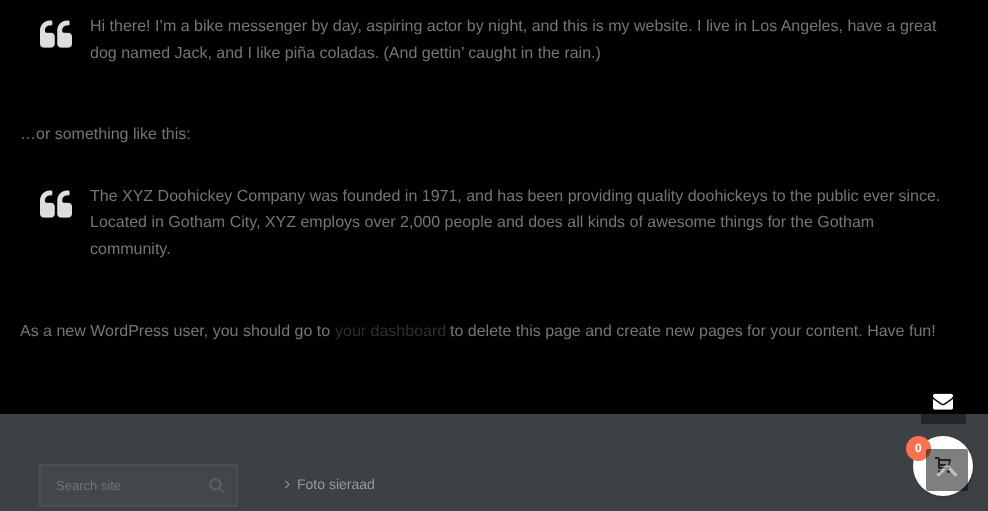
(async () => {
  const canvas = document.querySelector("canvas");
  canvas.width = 988;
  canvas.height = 511;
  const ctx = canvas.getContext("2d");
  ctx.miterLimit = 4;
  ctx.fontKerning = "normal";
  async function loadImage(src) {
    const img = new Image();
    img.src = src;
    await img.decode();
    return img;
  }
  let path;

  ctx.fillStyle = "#3d4045";
  ctx.fillRect(0, 0, 988, 511);
  ctx.fillStyle = "#000000";
  ctx.fillRect(0, 0, 988, 414);
  ctx.drawImage(await loadImage("img/1.png"), 40, 20, 32, 28);
  ctx.drawImage(await loadImage("img/1.png"), 40, 190, 32, 28);
  ctx.fillStyle = "#252629";
  ctx.fillRect(921, 414, 45, 10);
  ctx.fillStyle = "#43464b";
  ctx.beginPath();
  ctx.rect(40, 465, 197, 41);
  ctx.fill();
  ctx.strokeStyle = "#4c4f54";
  ctx.lineWidth = 2;
  ctx.stroke();
  ctx.drawImage(await loadImage("img/2.png"), 209, 478, 15, 15);
  ctx.drawImage(await loadImage("img/3.png"), 285, 480, 5, 9);
  ctx.drawImage(await loadImage("img/4.png"), 933, 393, 20, 17);
  ctx.fillStyle = "rgba(0, 0, 0, 0.2)";
  ctx.filter = "blur(1.5px)";
  ctx.beginPath();
  ctx.roundRect(914, 437, 60, 60, 30);
  ctx.fill();
  ctx.filter = "none";
  ctx.fillStyle = "#ffffff";
  ctx.beginPath();
  ctx.arc(943, 466, 30, 0, Math.PI * 2);
  ctx.fill();
  ctx.fillStyle = "#f97352";
  ctx.beginPath();
  ctx.arc(918.5, 448.5, 12.5, 0, Math.PI * 2);
  ctx.fill();
  ctx.drawImage(await loadImage("img/5.png"), 935, 457, 16, 16);
  ctx.fillStyle = "rgba(0, 0, 0, 0.5)";
  ctx.beginPath();
  ctx.roundRect(926, 449, 42, 42, 2);
  ctx.fill();
  ctx.fillStyle = "rgba(255, 255, 255, 0.5)";
  path = new Path2D("M955 476.5L947 468.5L939 476.5L936 475L947 463.5L958 475Z");
  ctx.fill(path);
  ctx.font = "16px Liberation Sans";
  ctx.fillStyle = "#757575";
  for (const [text, x, y] of [
    ["Hi there! I’m a bike messenger by day, aspiring actor by night, and this is my website. I live in Los Angeles, have a great", 90, 31],
    ["dog named Jack, and I like piña coladas. (And gettin’ caught in the rain.)", 90, 58],
    ["…or something like this:", 20, 139],
    ["The XYZ Doohickey Company was founded in 1971, and has been providing quality doohickeys to the public ever since.", 90, 201],
    ["Located in Gotham City, XYZ employs over 2,000 people and does all kinds of awesome things for the Gotham", 90, 227],
    ["community.", 90, 254],
    ["As a new WordPress user, you should go to", 20, 336],
  ]) {
    ctx.fillText(text, x, y);
  }
  ctx.fillStyle = "#2e2e2e";
  ctx.fillText("your dashboard", 335, 336);
  ctx.fillStyle = "#757575";
  ctx.fillText("to delete this page and create new pages for your content. Have fun!", 450, 336);
  ctx.font = "13px Liberation Sans";
  ctx.fillText("Search site", 56, 490);
  ctx.font = "14px Liberation Sans";
  ctx.fillStyle = "#999999";
  ctx.fillText("Foto sieraad", 297, 489);
  ctx.font = "bold 12px Liberation Sans";
  ctx.fillStyle = "#ffffff";
  ctx.fillText("0", 915, 452);
})();
